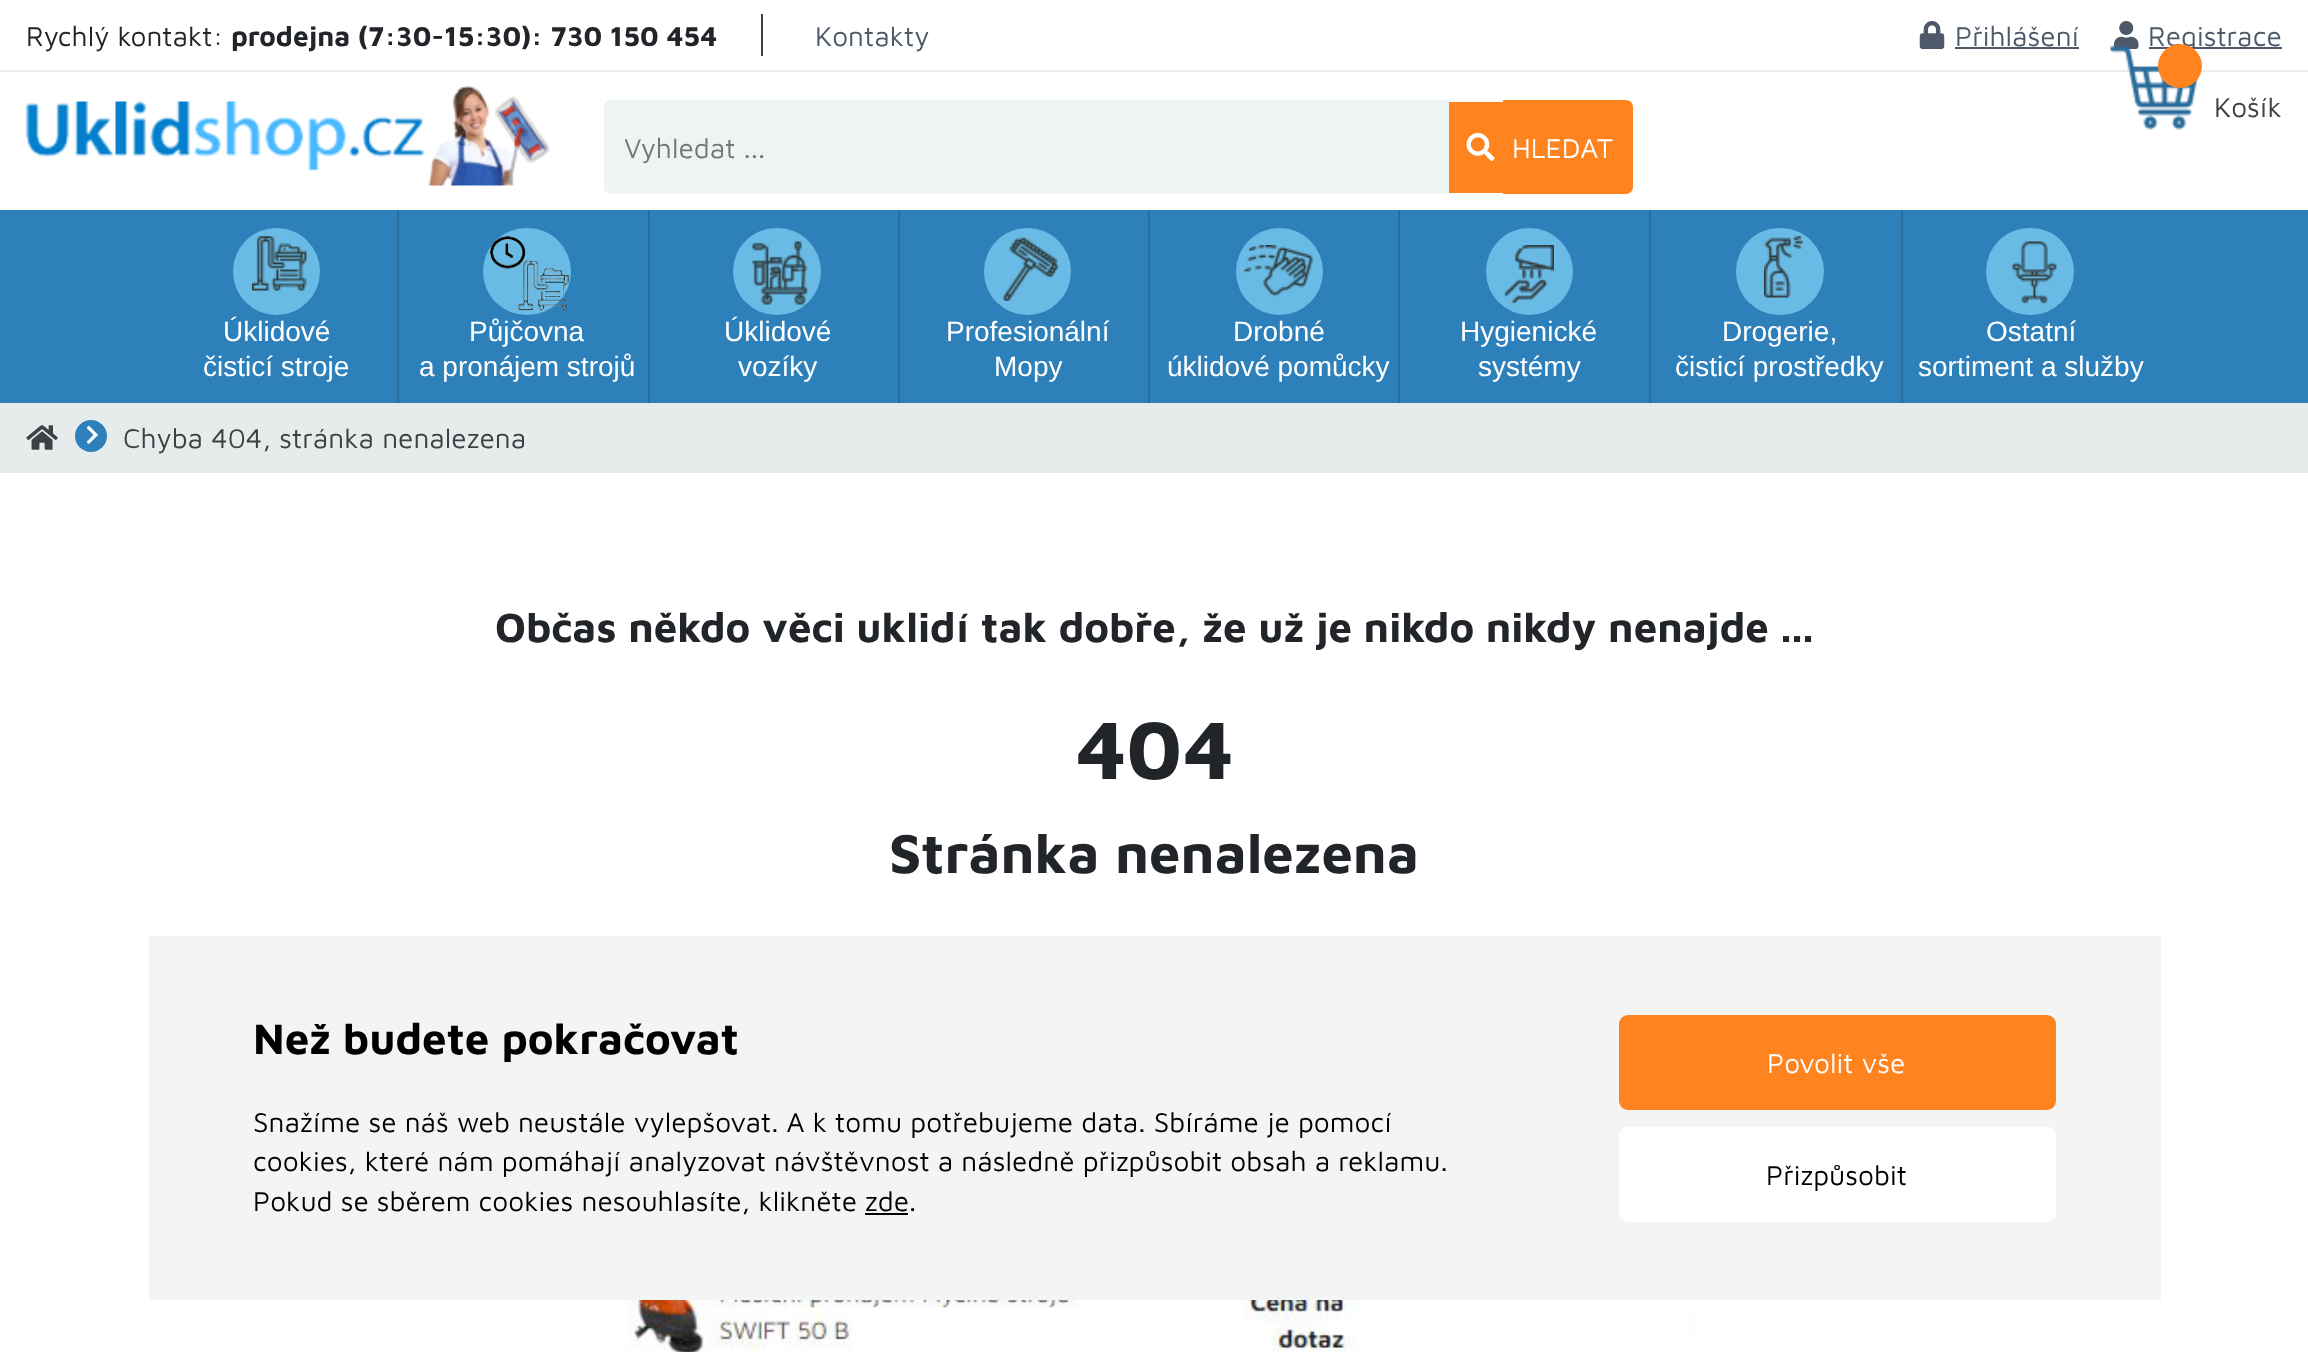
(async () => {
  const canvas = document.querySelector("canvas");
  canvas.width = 2308;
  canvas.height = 1352;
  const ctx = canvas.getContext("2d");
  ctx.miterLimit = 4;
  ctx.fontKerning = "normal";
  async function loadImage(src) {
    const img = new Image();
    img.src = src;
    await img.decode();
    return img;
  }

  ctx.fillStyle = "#ffffff";
  ctx.fillRect(0, 0, 2308, 1352);
  ctx.fillStyle = "#e8efef";
  ctx.fillRect(0, 70, 2308, 2);
  ctx.fillStyle = "#3c4243";
  ctx.fillRect(761, 14, 2, 42);
  ctx.drawImage(await loadImage("img/1.png"), 1919, 21, 26, 28);
  ctx.fillStyle = "#4d5968";
  ctx.fillRect(1955, 47, 124, 2);
  ctx.drawImage(await loadImage("img/2.png"), 2114, 21, 25, 28);
  ctx.fillRect(2149, 47, 133, 2);
  ctx.drawImage(await loadImage("img/3.png"), 26, 85, 524, 101);
  ctx.fillStyle = "#eef4f4";
  ctx.beginPath();
  ctx.roundRect(604, 100, 847, 94, [7, 0, 0, 7]);
  ctx.fill();
  ctx.fillStyle = "#ff831e";
  ctx.fillRect(1449, 102, 54, 91);
  ctx.beginPath();
  ctx.roundRect(1503, 100, 130, 94, [0, 7, 7, 0]);
  ctx.fill();
  ctx.drawImage(await loadImage("img/5.png"), 1466, 133, 29, 28);
  ctx.fillStyle = "#2d80ba";
  ctx.fillRect(0, 210, 2308, 193);
  ctx.fillStyle = "#2a6c9a";
  ctx.fillRect(397, 210, 2, 193);
  ctx.fillStyle = "#69bae5";
  ctx.beginPath();
  ctx.arc(276.5, 271.5, 43.5, 0, Math.PI * 2);
  ctx.fill();
  ctx.drawImage(await loadImage("img/6.png"), 252, 236, 55, 55);
  ctx.fillStyle = "#2a6c9a";
  ctx.fillRect(648, 210, 2, 193);
  ctx.fillStyle = "#69bae5";
  ctx.beginPath();
  ctx.roundRect(483, 228, 88, 87, 43.5);
  ctx.fill();
  ctx.drawImage(await loadImage("img/7.png"), 490, 236, 80, 75);
  ctx.fillStyle = "#2a6c9a";
  ctx.fillRect(898, 210, 2, 193);
  ctx.fillStyle = "#69bae5";
  ctx.beginPath();
  ctx.roundRect(733, 228, 88, 87, 43.5);
  ctx.fill();
  ctx.drawImage(await loadImage("img/8.png"), 752, 241, 56, 64);
  ctx.fillStyle = "#2a6c9a";
  ctx.fillRect(1148, 210, 2, 193);
  ctx.fillStyle = "#69bae5";
  ctx.beginPath();
  ctx.arc(1027.5, 271.5, 43.5, 0, Math.PI * 2);
  ctx.fill();
  ctx.drawImage(await loadImage("img/9.png"), 1002, 237, 57, 64);
  ctx.fillStyle = "#2a6c9a";
  ctx.fillRect(1398, 210, 2, 193);
  ctx.fillStyle = "#69bae5";
  ctx.beginPath();
  ctx.arc(1279.5, 271.5, 43.5, 0, Math.PI * 2);
  ctx.fill();
  ctx.drawImage(await loadImage("img/10.png"), 1244, 245, 69, 52);
  ctx.fillStyle = "#2a6c9a";
  ctx.fillRect(1649, 210, 2, 193);
  ctx.fillStyle = "#69bae5";
  ctx.beginPath();
  ctx.arc(1529.5, 271.5, 43.5, 0, Math.PI * 2);
  ctx.fill();
  ctx.drawImage(await loadImage("img/11.png"), 1505, 245, 49, 59);
  ctx.fillStyle = "#2a6c9a";
  ctx.fillRect(1901, 210, 2, 193);
  ctx.fillStyle = "#69bae5";
  ctx.beginPath();
  ctx.roundRect(1736, 228, 88, 87, 43.5);
  ctx.fill();
  ctx.drawImage(await loadImage("img/12.png"), 1764, 236, 39, 62);
  ctx.beginPath();
  ctx.roundRect(1986, 228, 88, 87, 43.5);
  ctx.fill();
  ctx.drawImage(await loadImage("img/13.png"), 2012, 241, 45, 63);
  ctx.fillStyle = "#e6ecec";
  ctx.fillRect(0, 403, 2308, 70);
  ctx.drawImage(await loadImage("img/14.png"), 26, 425, 32, 25);
  ctx.fillStyle = "#2d80ba";
  ctx.beginPath();
  ctx.arc(91, 436, 16, 0, Math.PI * 2);
  ctx.fill();
  ctx.drawImage(await loadImage("img/15.png"), 86, 425, 12, 19);
  ctx.drawImage(await loadImage("img/16.png"), 597, 1300, 1100, 52);
  ctx.fillStyle = "#f3f5f5";
  ctx.fillRect(149, 936, 2012, 364);
  ctx.fillStyle = "#000000";
  ctx.fillRect(865, 1213, 43, 2);
  ctx.fillStyle = "#ff831e";
  ctx.beginPath();
  ctx.roundRect(1619, 1015, 437, 95, 9);
  ctx.fill();
  ctx.fillStyle = "#ffffff";
  ctx.beginPath();
  ctx.roundRect(1619, 1127, 437, 95, 9);
  ctx.fill();
  ctx.font = "28px Maven Pro";
  ctx.fillStyle = "#212529";
  ctx.fillText("Rychlý kontakt:", 26, 46);
  ctx.font = "bold 28px Maven Pro";
  ctx.fillText("prodejna (7:30-15:30): 730 150 454", 231, 46);
  ctx.font = "28px Maven Pro";
  ctx.fillStyle = "#4d5968";
  for (const [text, x, y] of [
    ["Kontakty", 815, 46],
    ["Přihlášení", 1955, 46],
    ["Registrace", 2148, 46],
  ]) {
    ctx.fillText(text, x, y);
  }
  ctx.drawImage(await loadImage("img/4.png"), 2110, 45, 88, 85);
  ctx.fillStyle = "#ff831e";
  ctx.beginPath();
  ctx.arc(2180, 66, 22, 0, Math.PI * 2);
  ctx.fill();
  ctx.fillStyle = "#3c4243";
  ctx.fillText("Košík", 2214, 117);
  ctx.save();
  ctx.beginPath();
  ctx.rect(625, 131, 826, 32);
  ctx.clip();
  ctx.fillStyle = "#757575";
  ctx.fillText("Vyhledat ...", 624, 158);
  ctx.restore();
  ctx.fillStyle = "#ffffff";
  ctx.fillText("HLEDAT", 1512, 158);
  ctx.font = "28px Liberation Sans";
  for (const [text, x, y] of [
    ["Úklidové", 223, 341],
    ["čisticí stroje", 203, 376],
    ["Půjčovna", 469, 341],
    ["a pronájem strojů", 419, 376],
    ["Úklidové", 724, 341],
    ["vozíky", 738, 376],
    ["Profesionální", 946, 341],
    ["Mopy", 994, 376],
    ["Drobné", 1233, 341],
    ["úklidové pomůcky", 1167, 376],
    ["Hygienické", 1460, 341],
    ["systémy", 1478, 376],
    ["Drogerie,", 1722, 341],
    ["čisticí prostředky", 1675, 376],
    ["Ostatní", 1986, 341],
    ["sortiment a služby", 1918, 376],
  ]) {
    ctx.fillText(text, x, y);
  }
  ctx.font = "28px Maven Pro";
  ctx.fillStyle = "#3c4243";
  ctx.fillText("Chyba 404, stránka nenalezena", 123, 448);
  ctx.font = "bold 42px Maven Pro";
  ctx.fillStyle = "#212529";
  ctx.fillText("Občas někdo věci uklidí tak dobře, že už je nikdo nikdy nenajde ...", 495, 642);
  ctx.font = "bold 84px Maven Pro";
  ctx.fillText("404", 1075, 779);
  ctx.font = "bold 56px Maven Pro";
  ctx.fillText("Stránka nenalezena", 889, 873);
  ctx.font = "bold 43.75px Maven Pro";
  ctx.fillStyle = "#000000";
  ctx.fillText("Než budete pokračovat", 253, 1054);
  ctx.font = "28px Maven Pro";
  for (const [text, x, y] of [
    ["Snažíme se náš web neustále vylepšovat. A k tomu potřebujeme data. Sbíráme je pomocí", 253, 1132],
    ["cookies, které nám pomáhají analyzovat návštěvnost a následně přizpůsobit obsah a reklamu.", 253, 1171],
    ["Pokud se sběrem cookies nesouhlasíte, klikněte zde", 253, 1211],
    [".", 909, 1211],
  ]) {
    ctx.fillText(text, x, y);
  }
  ctx.fillStyle = "#ffffff";
  ctx.fillText("Povolit vše", 1767, 1073);
  ctx.fillStyle = "#000000";
  ctx.fillText("Přizpůsobit", 1766, 1185);
})();
